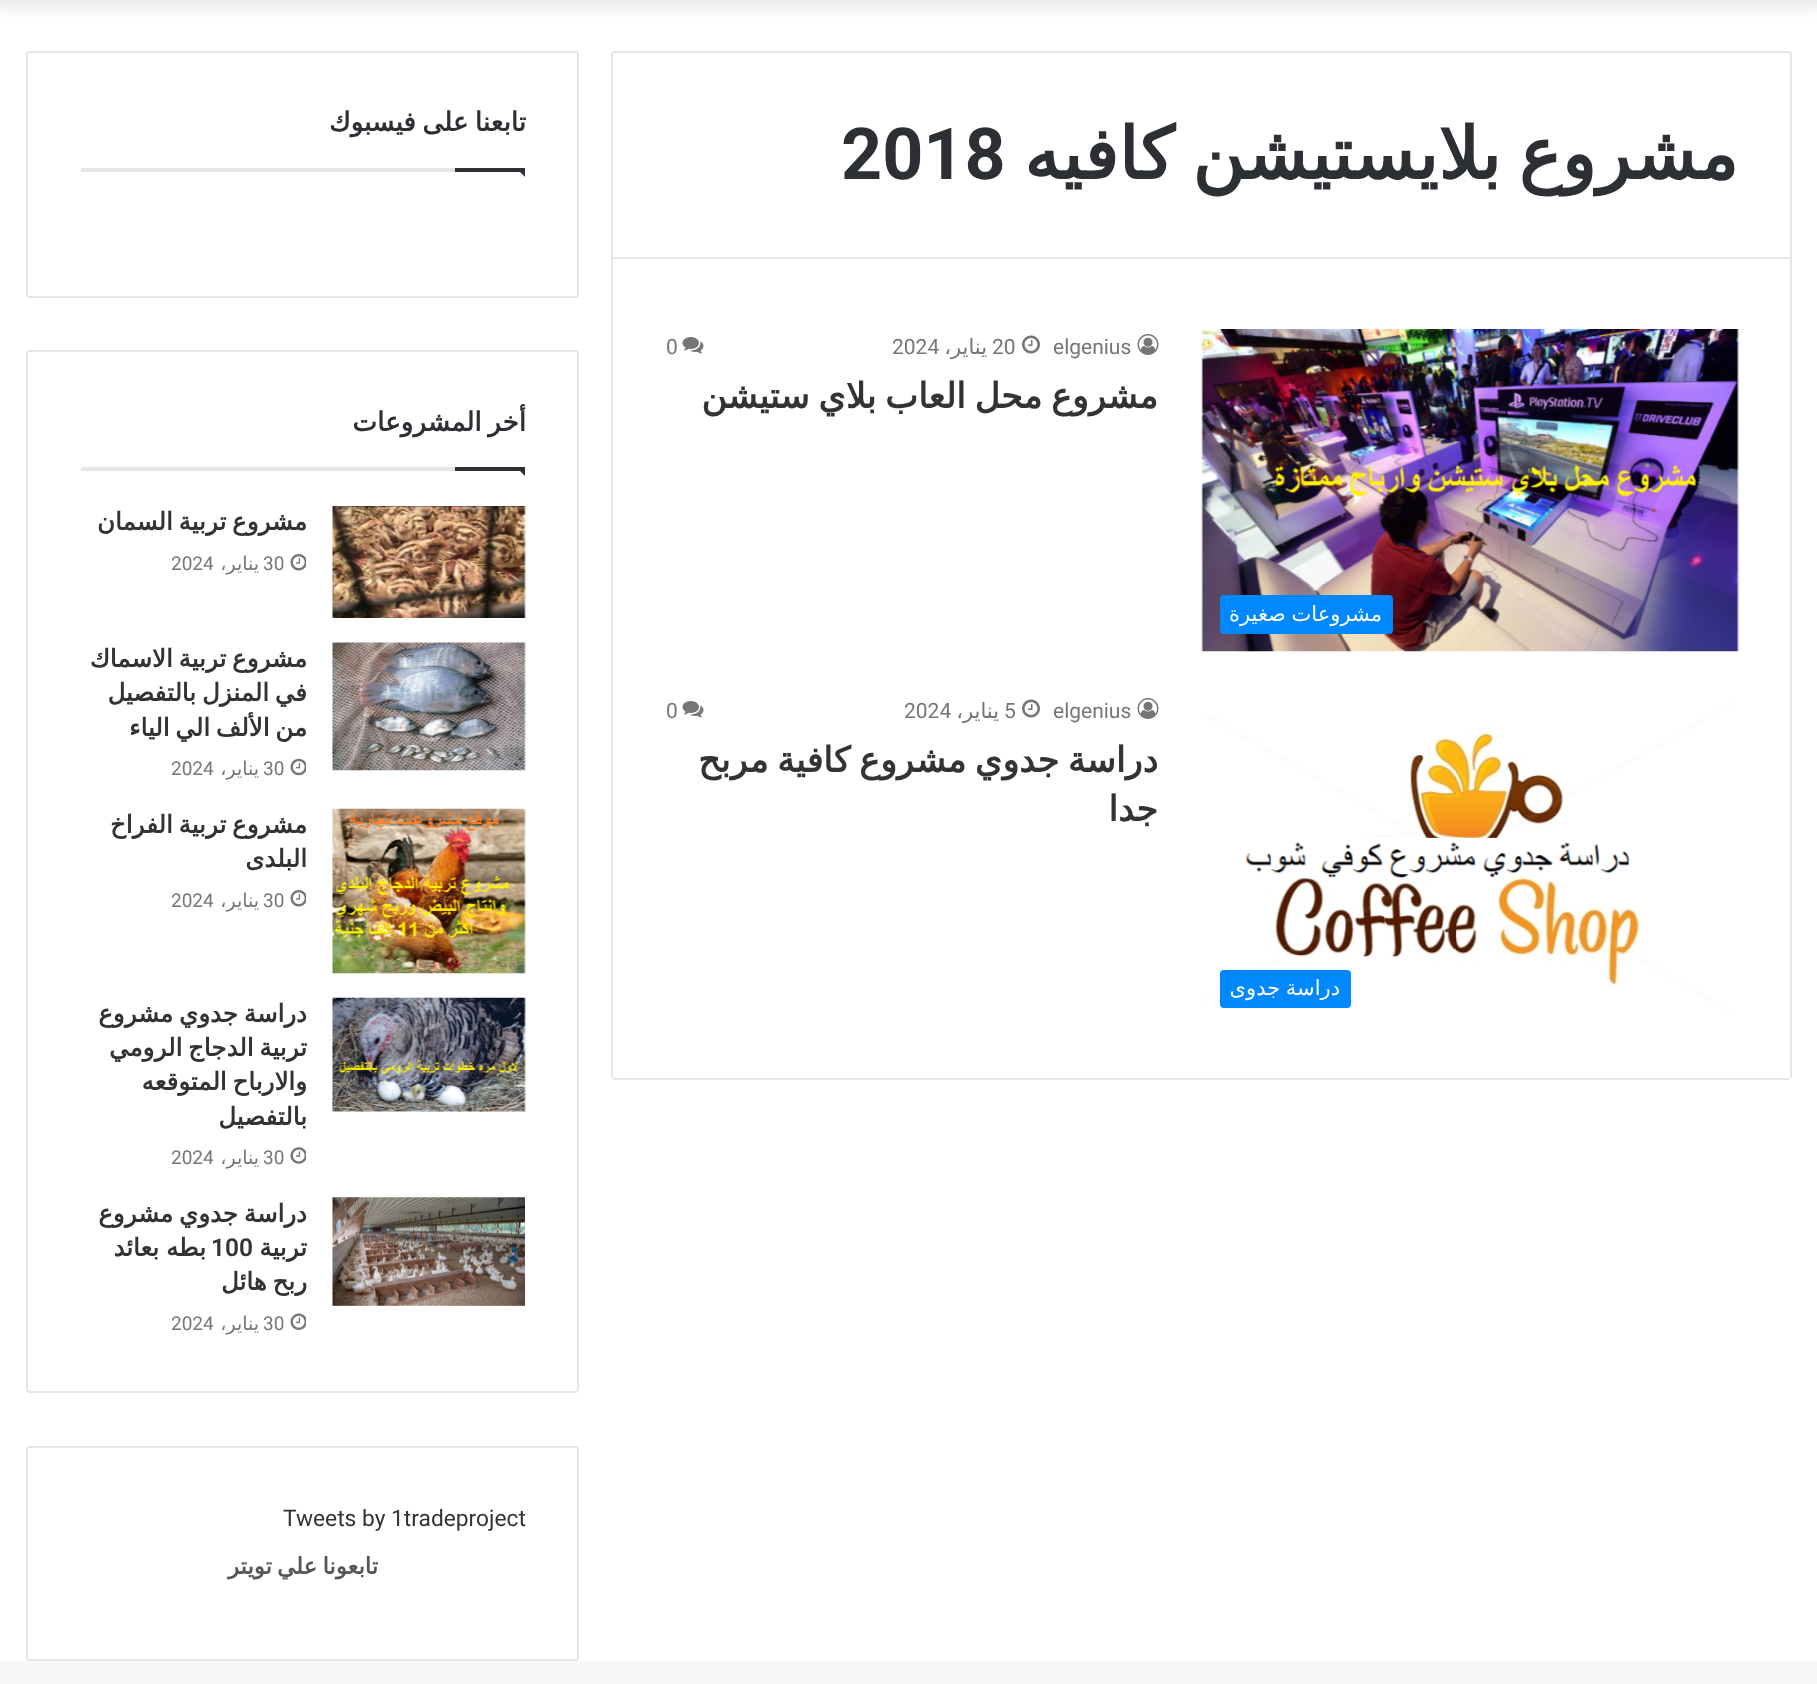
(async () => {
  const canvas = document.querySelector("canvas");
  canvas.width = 1817;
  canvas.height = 1684;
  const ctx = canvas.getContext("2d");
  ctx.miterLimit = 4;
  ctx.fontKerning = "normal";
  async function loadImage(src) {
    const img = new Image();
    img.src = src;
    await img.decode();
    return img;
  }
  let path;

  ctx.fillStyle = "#f7f7f7";
  ctx.fillRect(0, 0, 1817, 1684);
  ctx.fillStyle = "#ffffff";
  ctx.fillRect(0, 0, 1817, 1661);
  ctx.fillStyle = "rgba(0, 0, 0, 0.1)";
  ctx.filter = "blur(9px)";
  ctx.beginPath();
  ctx.rect(-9, -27, 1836, 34);
  ctx.fill();
  ctx.filter = "none";
  ctx.beginPath();
  ctx.roundRect(612, 52, 1179, 206, [3, 3, 0, 0]);
  ctx.strokeStyle = "#e6e6e6";
  ctx.lineWidth = 2;
  ctx.stroke();
  for (const [x, y, w, h, color] of [
    [1790, 259, 2, 819, "#e6e6e6"],
    [613, 1078, 1177, 2, "#e6e6e6"],
    [611, 259, 2, 819, "#e6e6e6"],
  ]) {
    ctx.fillStyle = color;
    ctx.fillRect(x, y, w, h);
  }
  ctx.drawImage(await loadImage("img/1.png"), 1137, 334, 22, 21);
  ctx.drawImage(await loadImage("img/2.png"), 1022, 335, 18, 19);
  ctx.drawImage(await loadImage("img/3.png"), 682, 337, 22, 17);
  ctx.drawImage(await loadImage("img/4.png"), 1201, 329, 538, 323);
  ctx.fillStyle = "#0088ff";
  ctx.beginPath();
  ctx.roundRect(1220, 595, 173, 39, 4);
  ctx.fill();
  ctx.drawImage(await loadImage("img/1.png"), 1137, 698, 22, 21);
  ctx.drawImage(await loadImage("img/2.png"), 1022, 699, 18, 19);
  ctx.drawImage(await loadImage("img/3.png"), 682, 701, 22, 17);
  ctx.drawImage(await loadImage("img/5.png"), 1204, 702, 533, 313);
  ctx.beginPath();
  ctx.roundRect(1220, 970, 131, 38, 4);
  ctx.fill();
  ctx.beginPath();
  ctx.roundRect(27, 52, 551, 245, 3);
  ctx.stroke();
  ctx.fillStyle = "#e6e6e6";
  ctx.fillRect(81, 168, 374, 4);
  ctx.fillStyle = "#2c2f34";
  path = new Path2D("M516 168H525V177Z");
  ctx.fill(path);
  ctx.fillRect(455, 168, 70, 4);
  ctx.beginPath();
  ctx.roundRect(27, 351, 551, 1041, 3);
  ctx.stroke();
  ctx.fillStyle = "#e6e6e6";
  ctx.fillRect(81, 467, 374, 4);
  ctx.fillStyle = "#2c2f34";
  path = new Path2D("M516 467H525V476Z");
  ctx.fill(path);
  ctx.fillRect(455, 467, 70, 4);
  ctx.drawImage(await loadImage("img/6.png"), 332, 506, 194, 112);
  ctx.drawImage(await loadImage("img/7.png"), 290, 554, 16, 17);
  ctx.drawImage(await loadImage("img/8.png"), 332, 642, 194, 129);
  ctx.drawImage(await loadImage("img/9.png"), 290, 758, 16, 18);
  ctx.drawImage(await loadImage("img/10.png"), 332, 808, 194, 166);
  ctx.drawImage(await loadImage("img/7.png"), 290, 890, 16, 17);
  ctx.drawImage(await loadImage("img/11.png"), 332, 997, 194, 115);
  ctx.drawImage(await loadImage("img/12.png"), 290, 1147, 16, 17);
  ctx.drawImage(await loadImage("img/13.png"), 332, 1197, 193, 109);
  ctx.drawImage(await loadImage("img/14.png"), 290, 1313, 16, 17);
  ctx.beginPath();
  ctx.roundRect(27, 1447, 551, 213, 3);
  ctx.stroke();
  ctx.wordSpacing = "-5px";
  ctx.direction = "rtl";
  ctx.font = "bold 71.75px DejaVu Sans";
  ctx.fillText("مشروع بلايستيشن كافيه", 1738, 179);
  ctx.wordSpacing = "0px";
  ctx.direction = "ltr";
  ctx.font = "bold 71.75px Roboto";
  ctx.fillText("2018", 841, 179);
  ctx.font = "21px Roboto";
  ctx.fillStyle = "#767676";
  ctx.fillText("elgenius", 1053, 354);
  ctx.fillText("20", 992, 354);
  ctx.direction = "rtl";
  ctx.font = "21px DejaVu Sans";
  ctx.fillText("يناير،", 987, 354);
  ctx.direction = "ltr";
  ctx.font = "21px Roboto";
  ctx.fillText("2024", 892, 354);
  ctx.fillText("0", 666, 354);
  ctx.wordSpacing = "-2.5px";
  ctx.direction = "rtl";
  ctx.font = "bold 35px DejaVu Sans";
  ctx.fillStyle = "#333333";
  ctx.fillText("مشروع محل العاب بلاي ستيشن", 1158, 408);
  ctx.wordSpacing = "-1px";
  ctx.font = "21px DejaVu Sans";
  ctx.fillStyle = "#ffffff";
  ctx.fillText("مشروعات صغيرة", 1382, 621);
  ctx.wordSpacing = "0px";
  ctx.direction = "ltr";
  ctx.font = "21px Roboto";
  ctx.fillStyle = "#767676";
  ctx.fillText("elgenius", 1053, 718);
  ctx.fillText("5", 1004, 718);
  ctx.direction = "rtl";
  ctx.font = "21px DejaVu Sans";
  ctx.fillText("يناير،", 999, 718);
  ctx.direction = "ltr";
  ctx.font = "21px Roboto";
  ctx.fillText("2024", 904, 718);
  ctx.fillText("0", 666, 718);
  ctx.wordSpacing = "-2.5px";
  ctx.direction = "rtl";
  ctx.font = "bold 35px DejaVu Sans";
  ctx.fillStyle = "#333333";
  ctx.fillText("دراسة جدوي مشروع كافية مربح", 1158, 772);
  ctx.wordSpacing = "0px";
  ctx.fillText("جدا", 1158, 821);
  ctx.wordSpacing = "-1px";
  ctx.font = "21px DejaVu Sans";
  ctx.fillStyle = "#ffffff";
  ctx.fillText("دراسة جدوى", 1340, 995);
  ctx.wordSpacing = "-2px";
  ctx.font = "bold 26.25px DejaVu Sans";
  ctx.fillStyle = "#2c2f34";
  ctx.fillText("تابعنا على فيسبوك", 526, 131);
  ctx.fillText("أخر المشروعات", 526, 431);
  ctx.font = "bold 24.5px DejaVu Sans";
  ctx.fillStyle = "#333333";
  ctx.fillText("مشروع تربية السمان", 307, 530);
  ctx.wordSpacing = "0px";
  ctx.direction = "ltr";
  ctx.font = "19px Roboto";
  ctx.fillStyle = "#767676";
  ctx.fillText("30", 263, 570);
  ctx.direction = "rtl";
  ctx.font = "19px DejaVu Sans";
  ctx.fillText("يناير،", 259, 570);
  ctx.direction = "ltr";
  ctx.font = "19px Roboto";
  ctx.fillText("2024", 171, 570);
  ctx.wordSpacing = "-2px";
  ctx.direction = "rtl";
  ctx.font = "bold 24.5px DejaVu Sans";
  ctx.fillStyle = "#333333";
  for (const [text, x, y] of [
    ["مشروع تربية الاسماك", 307, 667],
    ["في المنزل بالتفصيل", 307, 701],
    ["من الألف الي الياء", 307, 736],
  ]) {
    ctx.fillText(text, x, y);
  }
  ctx.wordSpacing = "0px";
  ctx.direction = "ltr";
  ctx.font = "19px Roboto";
  ctx.fillStyle = "#767676";
  ctx.fillText("30", 263, 775);
  ctx.direction = "rtl";
  ctx.font = "19px DejaVu Sans";
  ctx.fillText("يناير،", 259, 775);
  ctx.direction = "ltr";
  ctx.font = "19px Roboto";
  ctx.fillText("2024", 171, 775);
  ctx.wordSpacing = "-2px";
  ctx.direction = "rtl";
  ctx.font = "bold 24.5px DejaVu Sans";
  ctx.fillStyle = "#333333";
  ctx.fillText("مشروع تربية الفراخ", 307, 833);
  ctx.wordSpacing = "0px";
  ctx.fillText("البلدى", 307, 867);
  ctx.direction = "ltr";
  ctx.font = "19px Roboto";
  ctx.fillStyle = "#767676";
  ctx.fillText("30", 263, 907);
  ctx.direction = "rtl";
  ctx.font = "19px DejaVu Sans";
  ctx.fillText("يناير،", 259, 907);
  ctx.direction = "ltr";
  ctx.font = "19px Roboto";
  ctx.fillText("2024", 171, 907);
  ctx.wordSpacing = "-2px";
  ctx.direction = "rtl";
  ctx.font = "bold 24.5px DejaVu Sans";
  ctx.fillStyle = "#333333";
  for (const [text, x, y] of [
    ["دراسة جدوي مشروع", 307, 1022],
    ["تربية الدجاج الرومي", 307, 1056],
    ["والارباح المتوقعه", 307, 1090],
  ]) {
    ctx.fillText(text, x, y);
  }
  ctx.wordSpacing = "0px";
  ctx.fillText("بالتفصيل", 307, 1125);
  ctx.direction = "ltr";
  ctx.font = "19px Roboto";
  ctx.fillStyle = "#767676";
  ctx.fillText("30", 263, 1164);
  ctx.direction = "rtl";
  ctx.font = "19px DejaVu Sans";
  ctx.fillText("يناير،", 259, 1164);
  ctx.direction = "ltr";
  ctx.font = "19px Roboto";
  ctx.fillText("2024", 171, 1164);
  ctx.wordSpacing = "-2px";
  ctx.direction = "rtl";
  ctx.font = "bold 24.5px DejaVu Sans";
  ctx.fillStyle = "#333333";
  ctx.fillText("دراسة جدوي مشروع", 307, 1222);
  ctx.wordSpacing = "0px";
  ctx.fillText("تربية", 307, 1256);
  ctx.direction = "ltr";
  ctx.font = "600 24.5px Roboto";
  ctx.fillText("100", 211, 1256);
  ctx.wordSpacing = "-1px";
  ctx.direction = "rtl";
  ctx.font = "bold 24.5px DejaVu Sans";
  ctx.fillText("بطه بعائد", 206, 1256);
  ctx.wordSpacing = "-2px";
  ctx.fillText("ربح هائل", 307, 1290);
  ctx.wordSpacing = "0px";
  ctx.direction = "ltr";
  ctx.font = "19px Roboto";
  ctx.fillStyle = "#767676";
  ctx.fillText("30", 263, 1330);
  ctx.direction = "rtl";
  ctx.font = "19px DejaVu Sans";
  ctx.fillText("يناير،", 259, 1330);
  ctx.direction = "ltr";
  ctx.font = "19px Roboto";
  ctx.fillText("2024", 171, 1330);
  ctx.font = "22.75px Roboto";
  ctx.fillStyle = "#333333";
  ctx.fillText("Tweets by 1tradeproject", 283, 1526);
  ctx.wordSpacing = "-2px";
  ctx.direction = "rtl";
  ctx.font = "bold 22.75px DejaVu Sans";
  ctx.fillStyle = "#555555";
  ctx.fillText("تابعونا علي تويتر", 378, 1574);
})();
